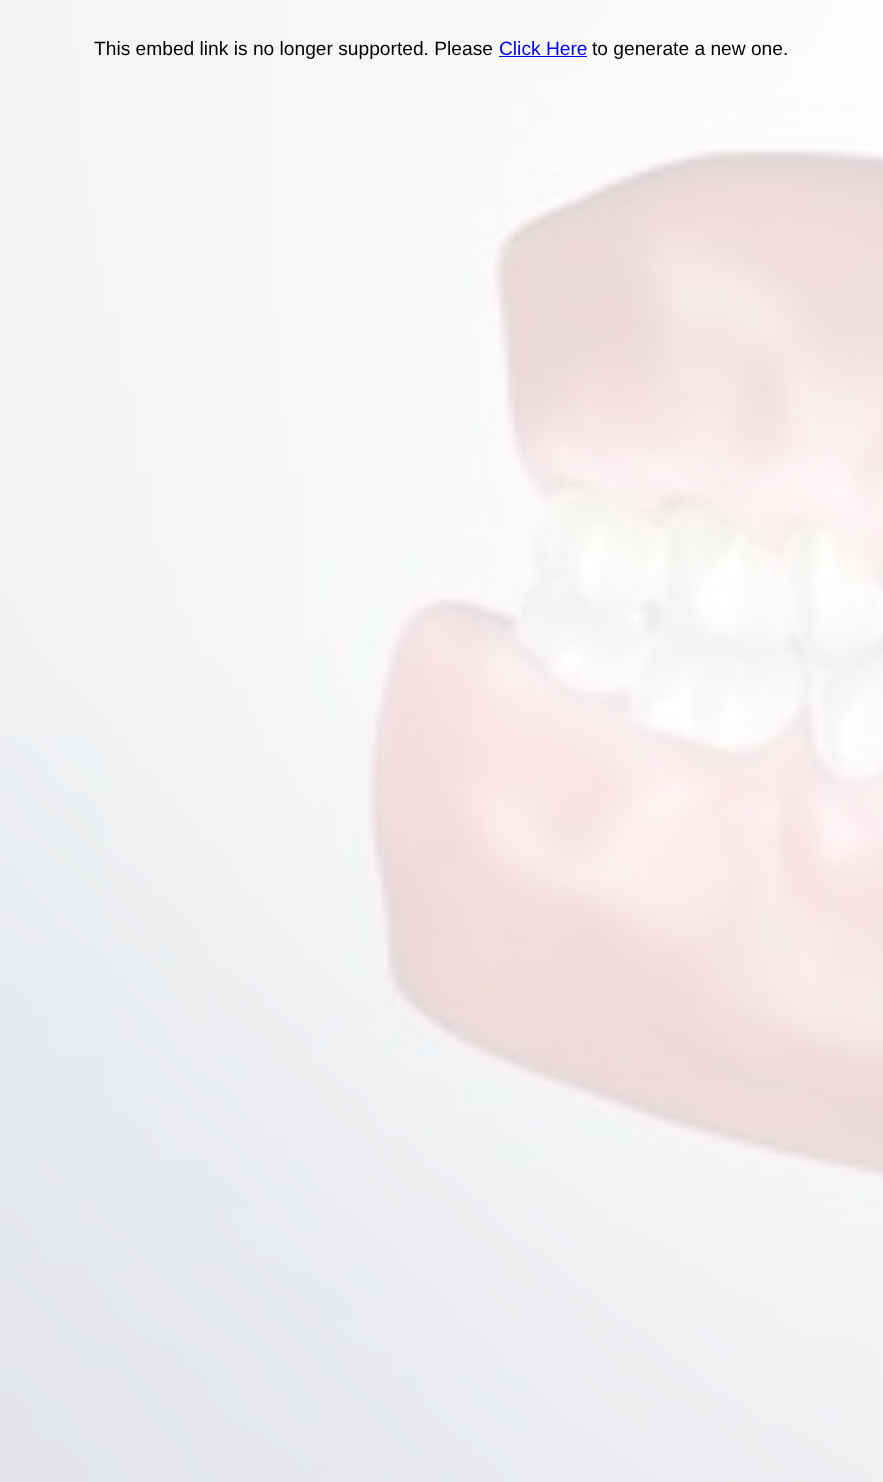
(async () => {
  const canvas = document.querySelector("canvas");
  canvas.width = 883;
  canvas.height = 1482;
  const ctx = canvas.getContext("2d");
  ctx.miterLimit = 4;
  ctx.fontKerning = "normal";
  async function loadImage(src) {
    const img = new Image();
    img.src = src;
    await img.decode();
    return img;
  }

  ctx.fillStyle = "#ffffff";
  ctx.fillRect(0, 0, 883, 1482);
  ctx.drawImage(await loadImage("img/1.png"), 0, 0, 883, 1482);
  ctx.fillStyle = "#0000ee";
  ctx.fillRect(499, 56, 88, 1);
  ctx.font = "19.2px Liberation Sans";
  ctx.fillStyle = "#000000";
  ctx.fillText("This embed link is no longer supported. Please", 94, 55);
  ctx.fillStyle = "#0000ee";
  ctx.fillText("Click Here", 499, 55);
  ctx.fillStyle = "#000000";
  ctx.fillText("to generate a new one.", 592, 55);
})();
